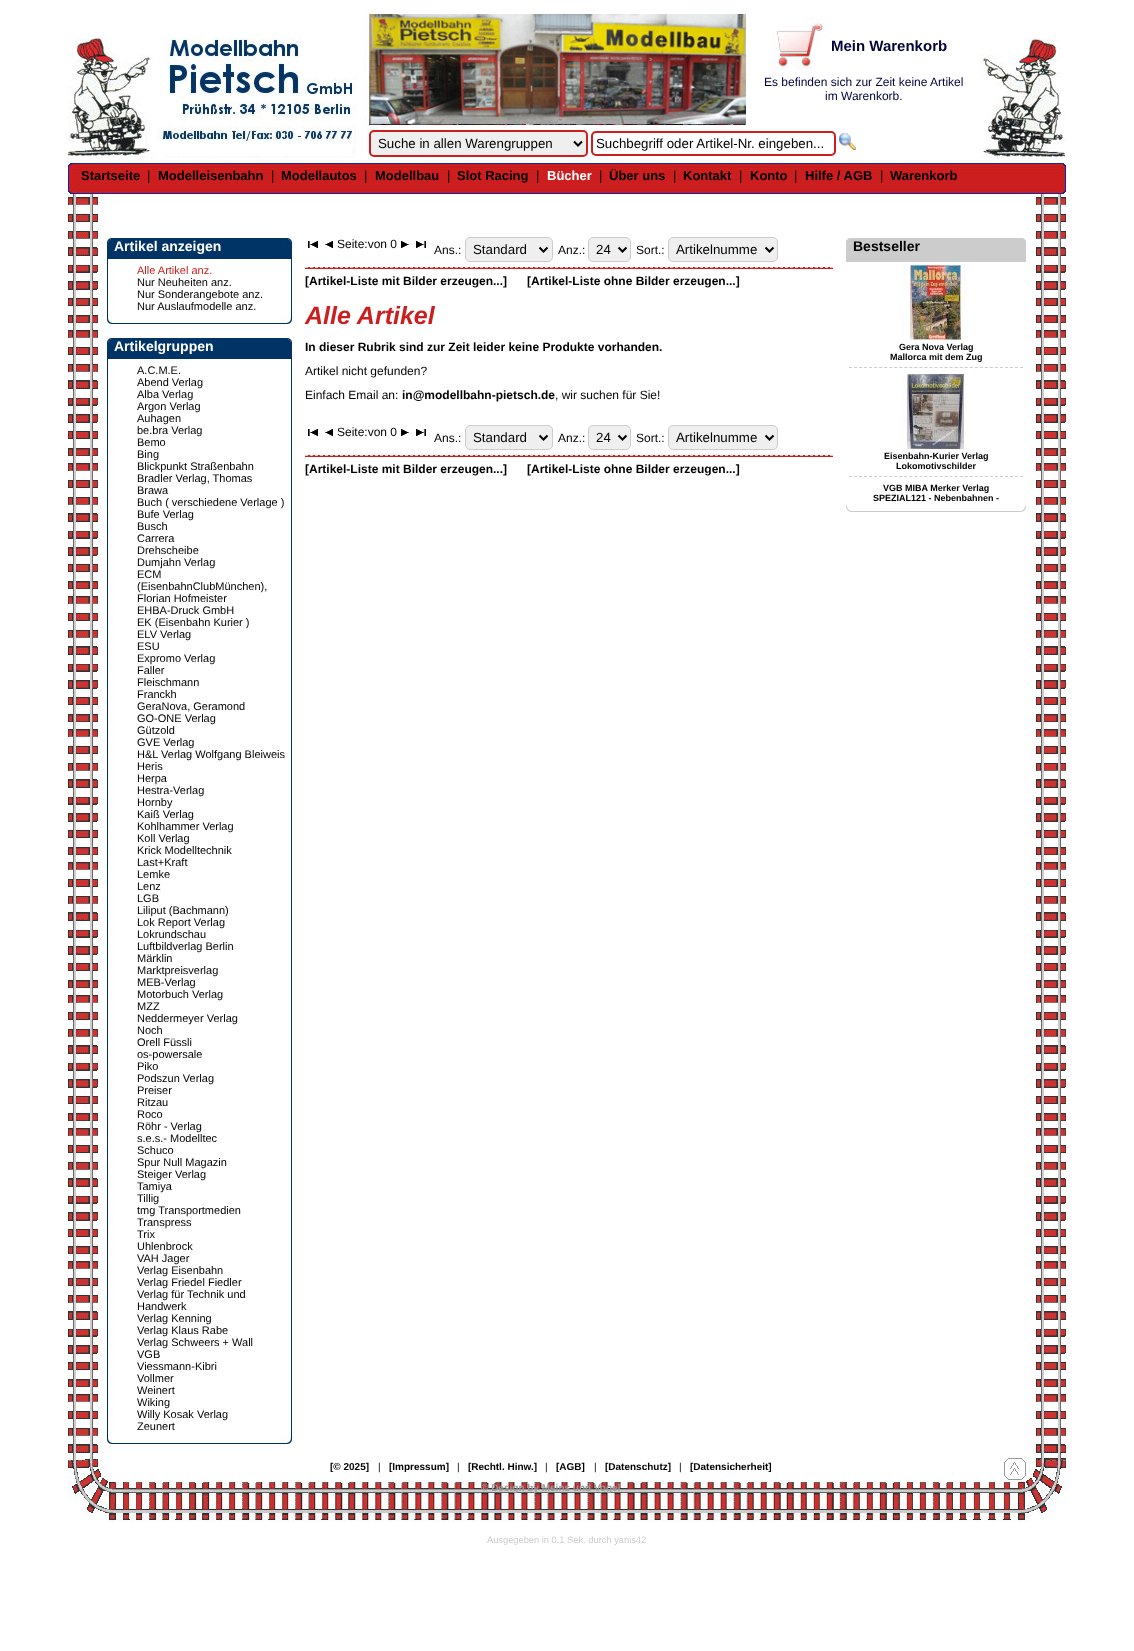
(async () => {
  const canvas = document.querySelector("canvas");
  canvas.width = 1134;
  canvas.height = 1651;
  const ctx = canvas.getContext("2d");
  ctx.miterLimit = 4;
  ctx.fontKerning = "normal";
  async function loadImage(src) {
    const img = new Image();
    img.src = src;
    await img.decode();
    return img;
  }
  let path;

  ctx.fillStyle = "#ffffff";
  ctx.fillRect(0, 0, 1134, 1651);
  ctx.drawImage(await loadImage("img/1.png"), 68, 194, 998, 1264);
  ctx.drawImage(await loadImage("img/2.png"), 68, 14, 998, 149);
  ctx.drawImage(await loadImage("img/3.png"), 158, 30, 194, 126);
  ctx.fillStyle = "#efefef";
  ctx.beginPath();
  ctx.roundRect(370, 131, 217, 25, 4);
  ctx.fill();
  ctx.strokeStyle = "#cc1e1e";
  ctx.lineWidth = 2;
  ctx.stroke();
  path = new Path2D("M574 141.5L578 145.5L582 141.5");
  ctx.strokeStyle = "#000000";
  ctx.stroke(path);
  ctx.beginPath();
  ctx.roundRect(592, 132, 243, 23, 4);
  ctx.strokeStyle = "#cc1e1e";
  ctx.stroke();
  ctx.drawImage(await loadImage("img/4.png"), 839, 133, 17, 17);
  ctx.drawImage(await loadImage("img/5.png"), 68, 163, 998, 31);
  ctx.drawImage(await loadImage("img/6.png"), 107, 238, 185, 21);
  ctx.drawImage(await loadImage("img/7.png"), 107, 259, 185, 58);
  ctx.drawImage(await loadImage("img/8.png"), 107, 317, 185, 7);
  ctx.drawImage(await loadImage("img/6.png"), 107, 338, 185, 21);
  ctx.drawImage(await loadImage("img/9.png"), 107, 359, 185, 1078);
  ctx.drawImage(await loadImage("img/8.png"), 107, 1437, 185, 7);
  ctx.drawImage(await loadImage("img/10.png"), 308, 241, 10, 7);
  ctx.drawImage(await loadImage("img/11.png"), 325, 241, 8, 7);
  ctx.drawImage(await loadImage("img/12.png"), 401, 241, 8, 7);
  ctx.drawImage(await loadImage("img/13.png"), 416, 241, 10, 7);
  ctx.beginPath();
  ctx.roundRect(465.5, 237.5, 87, 24, 4.5);
  ctx.fill();
  ctx.strokeStyle = "#cccccc";
  ctx.lineWidth = 1;
  ctx.stroke();
  path = new Path2D("M539.5 247.5L543.5 251.5L547.5 247.5");
  ctx.strokeStyle = "#000000";
  ctx.lineWidth = 2;
  ctx.stroke(path);
  ctx.beginPath();
  ctx.roundRect(588.5, 237.5, 42, 24, 4.5);
  ctx.fill();
  ctx.strokeStyle = "#cccccc";
  ctx.lineWidth = 1;
  ctx.stroke();
  path = new Path2D("M618.5 247.5L622.5 251.5L626.5 247.5");
  ctx.strokeStyle = "#000000";
  ctx.lineWidth = 2;
  ctx.stroke(path);
  ctx.beginPath();
  ctx.roundRect(668.5, 237.5, 109, 24, 4.5);
  ctx.fill();
  ctx.strokeStyle = "#cccccc";
  ctx.lineWidth = 1;
  ctx.stroke();
  path = new Path2D("M765.5 247.5L769.5 251.5L773.5 247.5");
  ctx.strokeStyle = "#000000";
  ctx.lineWidth = 2;
  ctx.stroke(path);
  ctx.fillStyle = "#cc1e1e";
  ctx.fillRect(305, 267, 528, 2);
  path = new Path2D("M305 267.5H833");
  ctx.strokeStyle = "#cccccc";
  ctx.lineWidth = 1;
  ctx.setLineDash([3, 2]);
  ctx.stroke(path);
  ctx.drawImage(await loadImage("img/10.png"), 308, 429, 10, 7);
  ctx.drawImage(await loadImage("img/11.png"), 325, 429, 8, 7);
  ctx.drawImage(await loadImage("img/12.png"), 401, 429, 8, 7);
  ctx.drawImage(await loadImage("img/13.png"), 416, 429, 10, 7);
  ctx.fillStyle = "#efefef";
  ctx.beginPath();
  ctx.roundRect(465.5, 425.5, 87, 24, 4.5);
  ctx.fill();
  ctx.setLineDash([]);
  ctx.stroke();
  path = new Path2D("M539.5 435.5L543.5 439.5L547.5 435.5");
  ctx.strokeStyle = "#000000";
  ctx.lineWidth = 2;
  ctx.stroke(path);
  ctx.beginPath();
  ctx.roundRect(588.5, 425.5, 42, 24, 4.5);
  ctx.fill();
  ctx.strokeStyle = "#cccccc";
  ctx.lineWidth = 1;
  ctx.stroke();
  path = new Path2D("M618.5 435.5L622.5 439.5L626.5 435.5");
  ctx.strokeStyle = "#000000";
  ctx.lineWidth = 2;
  ctx.stroke(path);
  ctx.beginPath();
  ctx.roundRect(668.5, 425.5, 109, 24, 4.5);
  ctx.fill();
  ctx.strokeStyle = "#cccccc";
  ctx.lineWidth = 1;
  ctx.stroke();
  path = new Path2D("M765.5 435.5L769.5 439.5L773.5 435.5");
  ctx.strokeStyle = "#000000";
  ctx.lineWidth = 2;
  ctx.stroke(path);
  ctx.fillStyle = "#cc1e1e";
  ctx.fillRect(305, 455, 528, 2);
  path = new Path2D("M305 455.5H833");
  ctx.strokeStyle = "#cccccc";
  ctx.lineWidth = 1;
  ctx.setLineDash([3, 2]);
  ctx.stroke(path);
  ctx.drawImage(await loadImage("img/14.png"), 846, 238, 180, 24);
  ctx.drawImage(await loadImage("img/15.png"), 901, 265, 65, 75);
  path = new Path2D("M849 367.5H1023");
  ctx.setLineDash([3, 2.03]);
  ctx.stroke(path);
  ctx.drawImage(await loadImage("img/16.png"), 902, 374, 64, 75);
  path = new Path2D("M849 476.5H1023");
  ctx.stroke(path);
  ctx.drawImage(await loadImage("img/17.png"), 846, 506, 180, 6);
  ctx.drawImage(await loadImage("img/18.png"), 68, 1458, 998, 64);
  ctx.drawImage(await loadImage("img/19.png"), 1004, 1458, 22, 22);
  ctx.font = "bold 15px Liberation Sans";
  ctx.fillStyle = "#02033c";
  ctx.fillText("Mein Warenkorb", 831, 51);
  ctx.font = "12px Liberation Sans";
  ctx.fillText("Es befinden sich zur Zeit keine Artikel", 764, 86);
  ctx.fillText("im Warenkorb.", 825, 100);
  ctx.font = "13.3px Liberation Sans";
  ctx.fillStyle = "#000000";
  ctx.fillText("Suche in allen Warengruppen", 378, 148);
  ctx.fillText("Suchbegriff oder Artikel-Nr. eingeben...", 596, 148);
  ctx.font = "bold 13px Liberation Sans";
  ctx.fillText("Startseite", 81, 180);
  ctx.font = "13px Liberation Sans";
  ctx.fillText("|", 147, 180);
  ctx.font = "bold 13px Liberation Sans";
  ctx.fillText("Modelleisenbahn", 158, 180);
  ctx.font = "13px Liberation Sans";
  ctx.fillText("|", 271, 180);
  ctx.font = "bold 13px Liberation Sans";
  ctx.fillText("Modellautos", 281, 180);
  ctx.font = "13px Liberation Sans";
  ctx.fillText("|", 364, 180);
  ctx.font = "bold 13px Liberation Sans";
  ctx.fillText("Modellbau", 375, 180);
  ctx.font = "13px Liberation Sans";
  ctx.fillText("|", 447, 180);
  ctx.font = "bold 13px Liberation Sans";
  ctx.fillText("Slot Racing", 457, 180);
  ctx.font = "13px Liberation Sans";
  ctx.fillText("|", 536, 180);
  ctx.font = "bold 13px Liberation Sans";
  ctx.fillStyle = "#ffffff";
  ctx.fillText("Bücher", 547, 180);
  ctx.font = "13px Liberation Sans";
  ctx.fillStyle = "#000000";
  ctx.fillText("|", 599, 180);
  ctx.font = "bold 13px Liberation Sans";
  ctx.fillText("Über uns", 609, 180);
  ctx.font = "13px Liberation Sans";
  ctx.fillText("|", 673, 180);
  ctx.font = "bold 13px Liberation Sans";
  ctx.fillText("Kontakt", 683, 180);
  ctx.font = "13px Liberation Sans";
  ctx.fillText("|", 739, 180);
  ctx.font = "bold 13px Liberation Sans";
  ctx.fillText("Konto", 750, 180);
  ctx.font = "13px Liberation Sans";
  ctx.fillText("|", 794, 180);
  ctx.font = "bold 13px Liberation Sans";
  ctx.fillText("Hilfe / AGB", 805, 180);
  ctx.font = "13px Liberation Sans";
  ctx.fillText("|", 880, 180);
  ctx.font = "bold 13px Liberation Sans";
  ctx.fillText("Warenkorb", 890, 180);
  ctx.font = "bold 14px Liberation Sans";
  ctx.fillStyle = "#ffffff";
  ctx.fillText("Artikel anzeigen", 114, 251);
  ctx.font = "11px Liberation Sans";
  ctx.fillStyle = "#cc1e1e";
  ctx.fillText("Alle Artikel anz.", 137, 274);
  ctx.fillStyle = "#000000";
  for (const [text, x, y] of [
    ["Nur Neuheiten anz.", 137, 286],
    ["Nur Sonderangebote anz.", 137, 298],
    ["Nur Auslaufmodelle anz.", 137, 310],
  ]) {
    ctx.fillText(text, x, y);
  }
  ctx.font = "bold 14px Liberation Sans";
  ctx.fillStyle = "#ffffff";
  ctx.fillText("Artikelgruppen", 114, 351);
  ctx.font = "11px Liberation Sans";
  ctx.fillStyle = "#000000";
  for (const [text, x, y] of [
    ["A.C.M.E.", 137, 374],
    ["Abend Verlag", 137, 386],
    ["Alba Verlag", 137, 398],
    ["Argon Verlag", 137, 410],
    ["Auhagen", 137, 422],
    ["be.bra Verlag", 137, 434],
    ["Bemo", 137, 446],
    ["Bing", 137, 458],
    ["Blickpunkt Straßenbahn", 137, 470],
    ["Bradler Verlag, Thomas", 137, 482],
    ["Brawa", 137, 494],
    ["Buch ( verschiedene Verlage )", 137, 506],
    ["Bufe Verlag", 137, 518],
    ["Busch", 137, 530],
    ["Carrera", 137, 542],
    ["Drehscheibe", 137, 554],
    ["Dumjahn Verlag", 137, 566],
    ["ECM", 137, 578],
    ["(EisenbahnClubMünchen),", 137, 590],
    ["Florian Hofmeister", 137, 602],
    ["EHBA-Druck GmbH", 137, 614],
    ["EK (Eisenbahn Kurier )", 137, 626],
    ["ELV Verlag", 137, 638],
    ["ESU", 137, 650],
    ["Expromo Verlag", 137, 662],
    ["Faller", 137, 674],
    ["Fleischmann", 137, 686],
    ["Franckh", 137, 698],
    ["GeraNova, Geramond", 137, 710],
    ["GO-ONE Verlag", 137, 722],
    ["Gützold", 137, 734],
    ["GVE Verlag", 137, 746],
    ["H&L Verlag Wolfgang Bleiweis", 137, 758],
    ["Heris", 137, 770],
    ["Herpa", 137, 782],
    ["Hestra-Verlag", 137, 794],
    ["Hornby", 137, 806],
    ["Kaiß Verlag", 137, 818],
    ["Kohlhammer Verlag", 137, 830],
    ["Koll Verlag", 137, 842],
    ["Krick Modelltechnik", 137, 854],
    ["Last+Kraft", 137, 866],
    ["Lemke", 137, 878],
    ["Lenz", 137, 890],
    ["LGB", 137, 902],
    ["Liliput (Bachmann)", 137, 914],
    ["Lok Report Verlag", 137, 926],
    ["Lokrundschau", 137, 938],
    ["Luftbildverlag Berlin", 137, 950],
    ["Märklin", 137, 962],
    ["Marktpreisverlag", 137, 974],
    ["MEB-Verlag", 137, 986],
    ["Motorbuch Verlag", 137, 998],
    ["MZZ", 137, 1010],
    ["Neddermeyer Verlag", 137, 1022],
    ["Noch", 137, 1034],
    ["Orell Füssli", 137, 1046],
    ["os-powersale", 137, 1058],
    ["Piko", 137, 1070],
    ["Podszun Verlag", 137, 1082],
    ["Preiser", 137, 1094],
    ["Ritzau", 137, 1106],
    ["Roco", 137, 1118],
    ["Röhr - Verlag", 137, 1130],
    ["s.e.s.- Modelltec", 137, 1142],
    ["Schuco", 137, 1154],
    ["Spur Null Magazin", 137, 1166],
    ["Steiger Verlag", 137, 1178],
    ["Tamiya", 137, 1190],
    ["Tillig", 137, 1202],
    ["tmg Transportmedien", 137, 1214],
    ["Transpress", 137, 1226],
    ["Trix", 137, 1238],
    ["Uhlenbrock", 137, 1250],
    ["VAH Jager", 137, 1262],
    ["Verlag Eisenbahn", 137, 1274],
    ["Verlag Friedel Fiedler", 137, 1286],
    ["Verlag für Technik und", 137, 1298],
    ["Handwerk", 137, 1310],
    ["Verlag Kenning", 137, 1322],
    ["Verlag Klaus Rabe", 137, 1334],
    ["Verlag Schweers + Wall", 137, 1346],
    ["VGB", 137, 1358],
    ["Viessmann-Kibri", 137, 1370],
    ["Vollmer", 137, 1382],
    ["Weinert", 137, 1394],
    ["Wiking", 137, 1406],
    ["Willy Kosak Verlag", 137, 1418],
    ["Zeunert", 137, 1430],
  ]) {
    ctx.fillText(text, x, y);
  }
  ctx.font = "12px Liberation Sans";
  ctx.fillText("Seite:von 0", 337, 248);
  ctx.fillText("Ans.:", 434, 254);
  ctx.font = "13.3px Liberation Sans";
  ctx.fillText("Standard", 473, 254);
  ctx.font = "12px Liberation Sans";
  ctx.fillText("Anz.:", 558, 254);
  ctx.font = "13.3px Liberation Sans";
  ctx.fillText("24", 596, 254);
  ctx.font = "12px Liberation Sans";
  ctx.fillText("Sort.:", 636, 254);
  ctx.font = "13.3px Liberation Sans";
  ctx.fillText("Artikelnumme", 676, 254);
  ctx.font = "bold 12px Liberation Sans";
  ctx.fillText("[Artikel-Liste mit Bilder erzeugen...]", 305, 285);
  ctx.fillText("[Artikel-Liste ohne Bilder erzeugen...]", 527, 285);
  ctx.font = "italic bold 25px Liberation Sans";
  ctx.fillStyle = "#cc1e1e";
  ctx.fillText("Alle Artikel", 305, 324);
  ctx.font = "bold 12px Liberation Sans";
  ctx.fillStyle = "#000000";
  ctx.fillText("In dieser Rubrik sind zur Zeit leider keine Produkte vorhanden.", 305, 351);
  ctx.font = "12px Liberation Sans";
  ctx.fillText("Artikel nicht gefunden?", 305, 375);
  ctx.fillText("Einfach Email an:", 305, 399);
  ctx.font = "bold 12px Liberation Sans";
  ctx.fillText("in@modellbahn-pietsch.de", 402, 399);
  ctx.font = "12px Liberation Sans";
  for (const [text, x, y] of [
    [", wir suchen für Sie!", 555, 399],
    ["Seite:von 0", 337, 436],
    ["Ans.:", 434, 442],
  ]) {
    ctx.fillText(text, x, y);
  }
  ctx.font = "13.3px Liberation Sans";
  ctx.fillText("Standard", 473, 442);
  ctx.font = "12px Liberation Sans";
  ctx.fillText("Anz.:", 558, 442);
  ctx.font = "13.3px Liberation Sans";
  ctx.fillText("24", 596, 442);
  ctx.font = "12px Liberation Sans";
  ctx.fillText("Sort.:", 636, 442);
  ctx.font = "13.3px Liberation Sans";
  ctx.fillText("Artikelnumme", 676, 442);
  ctx.font = "bold 12px Liberation Sans";
  ctx.fillText("[Artikel-Liste mit Bilder erzeugen...]", 305, 473);
  ctx.fillText("[Artikel-Liste ohne Bilder erzeugen...]", 527, 473);
  ctx.font = "bold 14px Liberation Sans";
  ctx.fillText("Bestseller", 853, 251);
  ctx.font = "bold 9px Liberation Sans";
  for (const [text, x, y] of [
    ["Gera Nova Verlag", 899, 350],
    ["Mallorca mit dem Zug", 890, 360],
    ["Eisenbahn-Kurier Verlag", 884, 459],
    ["Lokomotivschilder", 896, 469],
    ["VGB MIBA Merker Verlag", 883, 491],
    ["SPEZIAL121 - Nebenbahnen -", 873, 501],
  ]) {
    ctx.fillText(text, x, y);
  }
  ctx.save();
  ctx.beginPath();
  ctx.rect(98, 1461, 906, 11);
  ctx.clip();
  ctx.font = "bold 10px Liberation Sans";
  ctx.fillText("[© 2025]", 330, 1470);
  ctx.restore();
  ctx.font = "10px Liberation Sans";
  ctx.fillText("|", 378, 1470);
  ctx.save();
  ctx.beginPath();
  ctx.rect(98, 1461, 906, 11);
  ctx.clip();
  ctx.font = "bold 10px Liberation Sans";
  ctx.fillText("[Impressum]", 389, 1470);
  ctx.restore();
  ctx.fillText("|", 457, 1470);
  ctx.save();
  ctx.beginPath();
  ctx.rect(98, 1461, 906, 11);
  ctx.clip();
  ctx.font = "bold 10px Liberation Sans";
  ctx.fillText("[Rechtl. Hinw.]", 468, 1470);
  ctx.restore();
  ctx.fillText("|", 545, 1470);
  ctx.save();
  ctx.beginPath();
  ctx.rect(98, 1461, 906, 11);
  ctx.clip();
  ctx.font = "bold 10px Liberation Sans";
  ctx.fillText("[AGB]", 556, 1470);
  ctx.restore();
  ctx.fillText("|", 594, 1470);
  ctx.save();
  ctx.beginPath();
  ctx.rect(98, 1461, 906, 11);
  ctx.clip();
  ctx.font = "bold 10px Liberation Sans";
  ctx.fillText("[Datenschutz]", 605, 1470);
  ctx.restore();
  ctx.fillText("|", 679, 1470);
  ctx.save();
  ctx.beginPath();
  ctx.rect(98, 1461, 906, 11);
  ctx.clip();
  ctx.font = "bold 10px Liberation Sans";
  ctx.fillText("[Datensicherheit]", 690, 1470);
  ctx.restore();
  ctx.font = "bold 10px Liberation Sans";
  ctx.fillStyle = "#999999";
  ctx.fillText("© Design by Meins und Vogel", 481, 1491);
  ctx.font = "9.3px Liberation Sans";
  ctx.fillStyle = "#cccccc";
  ctx.fillText("Ausgegeben in 0.1 Sek. durch yanis42", 487, 1543);
})();
